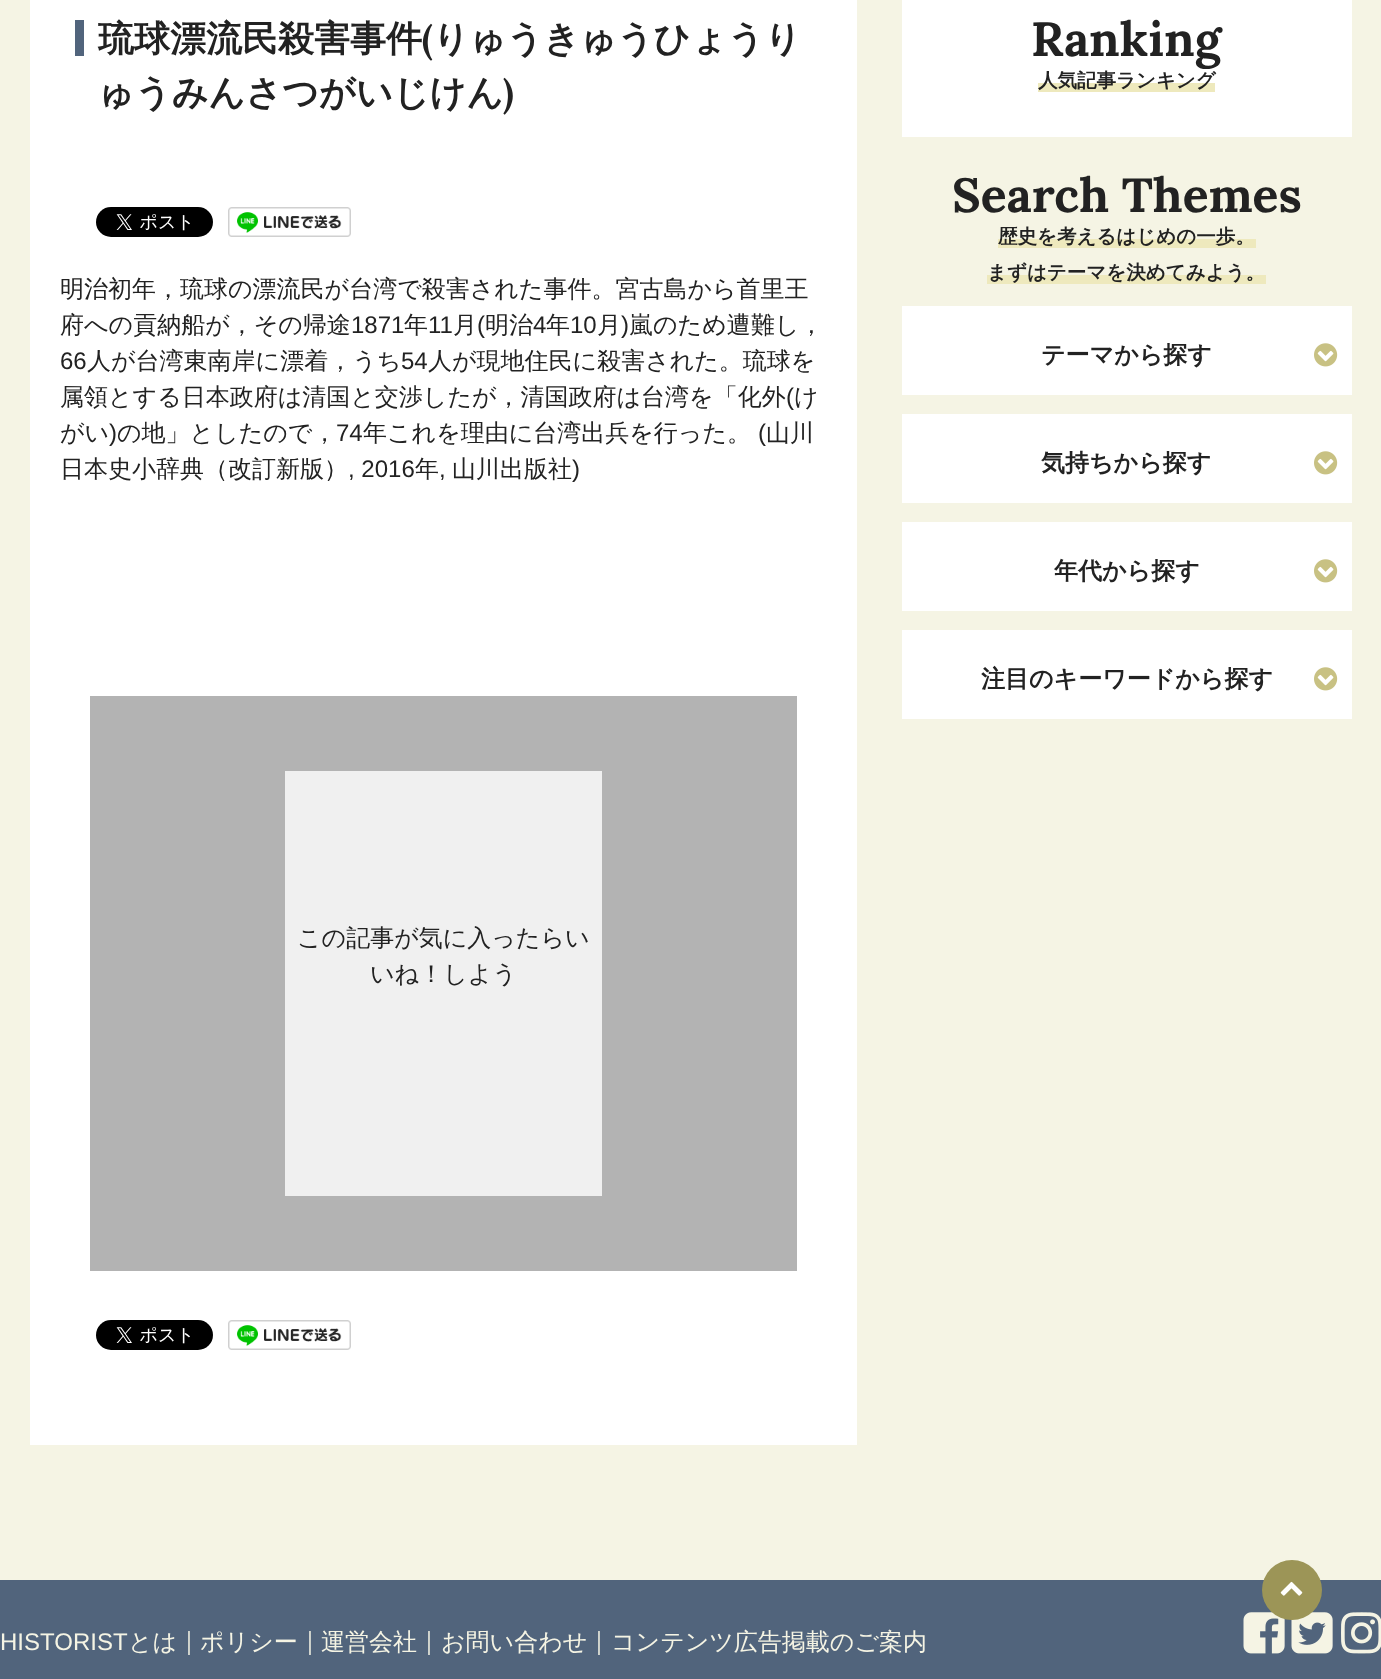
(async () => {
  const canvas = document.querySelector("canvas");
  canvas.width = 1381;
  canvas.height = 1679;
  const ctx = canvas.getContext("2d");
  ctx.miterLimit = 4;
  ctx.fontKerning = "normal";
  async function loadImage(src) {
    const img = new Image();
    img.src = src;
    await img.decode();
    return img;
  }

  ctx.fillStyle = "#f5f4e4";
  ctx.fillRect(0, 0, 1381, 1679);
  ctx.fillStyle = "#ffffff";
  ctx.fillRect(30, 0, 827, 1445);
  ctx.fillStyle = "#51647c";
  ctx.fillRect(75, 20, 9, 36);
  ctx.drawImage(await loadImage("img/1.png"), 96, 207, 117, 30);
  ctx.drawImage(await loadImage("img/2.png"), 228, 207, 123, 30);
  ctx.fillStyle = "#b3b3b3";
  ctx.fillRect(90, 696, 707, 575);
  ctx.fillStyle = "#f0f0f0";
  ctx.fillRect(285, 771, 317, 425);
  ctx.drawImage(await loadImage("img/1.png"), 96, 1320, 117, 30);
  ctx.drawImage(await loadImage("img/2.png"), 228, 1320, 123, 30);
  for (const [x, y, w, h, color] of [
    [902, 0, 450, 137, "#ffffff"],
    [1038, 83, 177, 9, "#eee9bd"],
    [998, 239, 258, 9, "#eee9bd"],
    [987, 275, 279, 9, "#eee9bd"],
    [902, 306, 450, 89, "#ffffff"],
  ]) {
    ctx.fillStyle = color;
    ctx.fillRect(x, y, w, h);
  }
  ctx.drawImage(await loadImage("img/3.png"), 1314, 343, 24, 24);
  ctx.fillRect(902, 414, 450, 89);
  ctx.drawImage(await loadImage("img/3.png"), 1314, 451, 24, 24);
  ctx.fillRect(902, 522, 450, 89);
  ctx.drawImage(await loadImage("img/3.png"), 1314, 559, 24, 24);
  ctx.fillRect(902, 630, 450, 89);
  ctx.drawImage(await loadImage("img/3.png"), 1314, 667, 24, 24);
  ctx.fillStyle = "#51647c";
  ctx.fillRect(0, 1580, 1381, 99);
  ctx.drawImage(await loadImage("img/5.png"), 1243, 1612, 42, 42);
  ctx.drawImage(await loadImage("img/6.png"), 1291, 1612, 42, 42);
  ctx.fillStyle = "#9c9557";
  ctx.beginPath();
  ctx.arc(1292, 1590, 30, 0, Math.PI * 2);
  ctx.fill();
  ctx.drawImage(await loadImage("img/4.png"), 1280, 1581, 23, 15);
  ctx.drawImage(await loadImage("img/7.png"), 1341, 1612, 40, 42);
  ctx.font = "bold 36px WenQuanYi Zen Hei";
  ctx.fillStyle = "#222222";
  ctx.fillText("琉球漂流民殺害事件 りゅうきゅうひょうり", 98, 51);
  ctx.font = "bold 36px Lora";
  ctx.fillText("(", 422, 51);
  ctx.font = "bold 36px WenQuanYi Zen Hei";
  ctx.fillText("ゅうみんさつがいじけん", 98, 105);
  ctx.font = "bold 36px Lora";
  ctx.fillText(")", 503, 105);
  ctx.font = "500 24px WenQuanYi Zen Hei";
  ctx.fillText("明治初年，琉球の漂流民が台湾で殺害された事件。宮古島から首里王", 60, 297);
  ctx.fillText("府への貢納船が，その帰途", 60, 333);
  ctx.font = "24px Liberation Sans";
  ctx.fillText("1871", 351, 333);
  ctx.font = "500 24px WenQuanYi Zen Hei";
  ctx.fillText("年", 404, 333);
  ctx.font = "24px Liberation Sans";
  ctx.fillText("11", 428, 333);
  ctx.font = "500 24px WenQuanYi Zen Hei";
  ctx.fillText("月", 453, 333);
  ctx.font = "24px Liberation Sans";
  ctx.fillText("(", 477, 333);
  ctx.font = "500 24px WenQuanYi Zen Hei";
  ctx.fillText("明治", 485, 333);
  ctx.font = "24px Liberation Sans";
  ctx.fillText("4", 533, 333);
  ctx.font = "500 24px WenQuanYi Zen Hei";
  ctx.fillText("年", 546, 333);
  ctx.font = "24px Liberation Sans";
  ctx.fillText("10", 570, 333);
  ctx.font = "500 24px WenQuanYi Zen Hei";
  ctx.fillText("月", 597, 333);
  ctx.font = "24px Liberation Sans";
  ctx.fillText(")", 621, 333);
  ctx.font = "500 24px WenQuanYi Zen Hei";
  ctx.fillText("嵐のため遭難し，", 629, 333);
  ctx.font = "24px Liberation Sans";
  ctx.fillText("66", 60, 369);
  ctx.font = "500 24px WenQuanYi Zen Hei";
  ctx.fillText("人が台湾東南岸に漂着，うち", 87, 369);
  ctx.font = "24px Liberation Sans";
  ctx.fillText("54", 401, 369);
  ctx.font = "500 24px WenQuanYi Zen Hei";
  ctx.fillText("人が現地住民に殺害された。琉球を", 428, 369);
  ctx.fillText("属領とする日本政府は清国と交渉したが，清国政府は台湾を「化外", 60, 405);
  ctx.font = "24px Liberation Sans";
  ctx.fillText("(", 786, 405);
  ctx.font = "500 24px WenQuanYi Zen Hei";
  ctx.fillText("け", 794, 405);
  ctx.fillText("がい", 60, 441);
  ctx.font = "24px Liberation Sans";
  ctx.fillText(")", 109, 441);
  ctx.font = "500 24px WenQuanYi Zen Hei";
  ctx.fillText("の地」としたので，", 117, 441);
  ctx.font = "24px Liberation Sans";
  ctx.fillText("74", 336, 441);
  ctx.font = "500 24px WenQuanYi Zen Hei";
  ctx.fillText("年これを理由に台湾出兵を行った。", 363, 441);
  ctx.font = "24px Liberation Sans";
  ctx.fillText("(", 758, 441);
  ctx.font = "500 24px WenQuanYi Zen Hei";
  ctx.fillText("山川", 766, 441);
  ctx.fillText("日本史小辞典（改訂新版）", 60, 477);
  ctx.font = "24px Liberation Sans";
  ctx.fillText(", 2016", 348, 477);
  ctx.font = "500 24px WenQuanYi Zen Hei";
  ctx.fillText("年", 415, 477);
  ctx.font = "24px Liberation Sans";
  ctx.fillText(",", 439, 477);
  ctx.font = "500 24px WenQuanYi Zen Hei";
  ctx.fillText("山川出版社", 452, 477);
  ctx.font = "24px Liberation Sans";
  ctx.fillText(")", 572, 477);
  ctx.font = "500 24px WenQuanYi Zen Hei";
  ctx.fillText("この記事が気に入ったらい", 297, 946);
  ctx.fillText("いね！しよう", 370, 982);
  ctx.font = "bold 48px Lora";
  ctx.fillText("Ranking", 1031, 56);
  ctx.font = "bold 19.5px WenQuanYi Zen Hei";
  ctx.fillText("人気記事ランキング", 1038, 87);
  ctx.font = "bold 48px Lora";
  ctx.fillText("Search Themes", 952, 212);
  ctx.font = "bold 19.5px WenQuanYi Zen Hei";
  ctx.fillText("歴史を考えるはじめの一歩。", 998, 243);
  ctx.fillText("まずはテーマを決めてみよう。", 987, 279);
  ctx.font = "bold 24px WenQuanYi Zen Hei";
  for (const [text, x, y] of [
    ["テーマから探す", 1041, 363],
    ["気持ちから探す", 1041, 471],
    ["年代から探す", 1054, 579],
    ["注目のキーワードから探す", 981, 687],
  ]) {
    ctx.fillText(text, x, y);
  }
  ctx.font = "24px Liberation Sans";
  ctx.fillStyle = "#f5f4e4";
  ctx.fillText("HISTORIST", 0, 1650);
  ctx.font = "500 24px WenQuanYi Zen Hei";
  for (const [text, x, y] of [
    ["とは", 128, 1650],
    ["｜", 177, 1649],
    ["ポリシー", 200, 1650],
    ["｜", 298, 1649],
    ["運営会社", 321, 1650],
    ["｜", 417, 1649],
    ["お問い合わせ", 441, 1650],
    ["｜", 587, 1649],
    ["コンテンツ広告掲載のご案内", 611, 1650],
  ]) {
    ctx.fillText(text, x, y);
  }
})();
